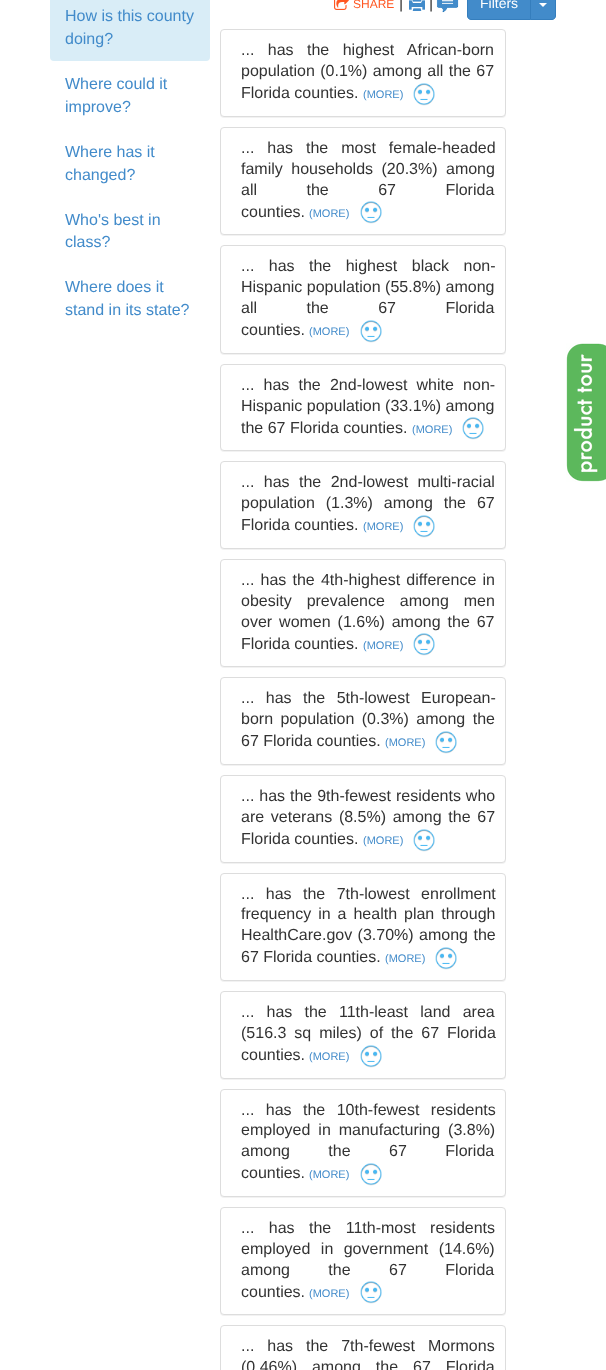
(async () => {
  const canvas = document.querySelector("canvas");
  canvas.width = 606;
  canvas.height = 1370;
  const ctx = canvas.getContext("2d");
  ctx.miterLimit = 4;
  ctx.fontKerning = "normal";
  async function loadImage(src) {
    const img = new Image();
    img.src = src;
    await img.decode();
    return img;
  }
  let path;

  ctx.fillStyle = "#ffffff";
  ctx.fillRect(0, 0, 606, 1370);
  ctx.drawImage(await loadImage("img/1.png"), 334, 0, 15, 10);
  ctx.drawImage(await loadImage("img/2.png"), 409, 0, 16, 11);
  ctx.drawImage(await loadImage("img/3.png"), 436, 0, 23, 13);
  ctx.fillStyle = "#428bca";
  path = new Path2D("M471-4.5H530.5V19.5H471C469 19.5 467.5 18 467.5 16V-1C467.5-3 469-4.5 471-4.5Z");
  ctx.fill(path);
  ctx.strokeStyle = "#357ebd";
  ctx.stroke(path);
  path = new Path2D("M530.5-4.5H552C554-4.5 555.5-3 555.5-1V16C555.5 18 554 19.5 552 19.5H530.5Z");
  ctx.fill(path);
  ctx.stroke(path);
  ctx.fillStyle = "#ffffff";
  path = new Path2D("M539 3H547L543 7Z");
  ctx.fill(path);
  ctx.fillStyle = "#d9edf7";
  ctx.beginPath();
  ctx.roundRect(50, -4, 160, 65, 4);
  ctx.fill();
  ctx.fillStyle = "rgba(0, 0, 0, 0.05)";
  ctx.filter = "blur(0.5px)";
  ctx.beginPath();
  ctx.roundRect(220, 30, 286, 88, 4);
  ctx.fill();
  ctx.filter = "none";
  ctx.fillStyle = "#ffffff";
  ctx.beginPath();
  ctx.roundRect(220.5, 29.5, 285, 87, 3.5);
  ctx.fill();
  ctx.strokeStyle = "#dddddd";
  ctx.stroke();
  ctx.drawImage(await loadImage("img/4.png"), 413, 83, 22, 23);
  ctx.fillStyle = "rgba(0, 0, 0, 0.05)";
  ctx.filter = "blur(0.5px)";
  ctx.beginPath();
  ctx.roundRect(220, 128, 286, 108, 4);
  ctx.fill();
  ctx.filter = "none";
  ctx.fillStyle = "#ffffff";
  ctx.beginPath();
  ctx.roundRect(220.5, 127.5, 285, 107, 3.5);
  ctx.fill();
  ctx.stroke();
  ctx.drawImage(await loadImage("img/4.png"), 360, 201, 22, 23);
  ctx.fillStyle = "rgba(0, 0, 0, 0.05)";
  ctx.filter = "blur(0.5px)";
  ctx.beginPath();
  ctx.roundRect(220, 246, 286, 109, 4);
  ctx.fill();
  ctx.filter = "none";
  ctx.fillStyle = "#ffffff";
  ctx.beginPath();
  ctx.roundRect(220.5, 245.5, 285, 108, 3.5);
  ctx.fill();
  ctx.stroke();
  ctx.drawImage(await loadImage("img/4.png"), 360, 320, 22, 23);
  ctx.fillStyle = "rgba(0, 0, 0, 0.05)";
  ctx.filter = "blur(0.5px)";
  ctx.beginPath();
  ctx.roundRect(220, 365, 286, 87, 4);
  ctx.fill();
  ctx.filter = "none";
  ctx.fillStyle = "#ffffff";
  ctx.beginPath();
  ctx.roundRect(220.5, 364.5, 285, 86, 3.5);
  ctx.fill();
  ctx.stroke();
  ctx.drawImage(await loadImage("img/4.png"), 462, 417, 22, 23);
  ctx.fillStyle = "rgba(0, 0, 0, 0.05)";
  ctx.filter = "blur(0.5px)";
  ctx.beginPath();
  ctx.roundRect(220, 462, 286, 88, 4);
  ctx.fill();
  ctx.filter = "none";
  ctx.fillStyle = "#ffffff";
  ctx.beginPath();
  ctx.roundRect(220.5, 461.5, 285, 87, 3.5);
  ctx.fill();
  ctx.stroke();
  ctx.drawImage(await loadImage("img/4.png"), 413, 515, 22, 23);
  ctx.fillStyle = "rgba(0, 0, 0, 0.05)";
  ctx.filter = "blur(0.5px)";
  ctx.beginPath();
  ctx.roundRect(220, 560, 286, 108, 4);
  ctx.fill();
  ctx.filter = "none";
  ctx.fillStyle = "#ffffff";
  ctx.beginPath();
  ctx.roundRect(220.5, 559.5, 285, 107, 3.5);
  ctx.fill();
  ctx.stroke();
  ctx.drawImage(await loadImage("img/4.png"), 413, 633, 22, 23);
  ctx.fillStyle = "rgba(0, 0, 0, 0.05)";
  ctx.filter = "blur(0.5px)";
  ctx.beginPath();
  ctx.roundRect(220, 678, 286, 88, 4);
  ctx.fill();
  ctx.filter = "none";
  ctx.fillStyle = "#ffffff";
  ctx.beginPath();
  ctx.roundRect(220.5, 677.5, 285, 87, 3.5);
  ctx.fill();
  ctx.stroke();
  ctx.drawImage(await loadImage("img/4.png"), 435, 731, 22, 23);
  ctx.fillStyle = "rgba(0, 0, 0, 0.05)";
  ctx.filter = "blur(0.5px)";
  ctx.beginPath();
  ctx.roundRect(220, 776, 286, 88, 4);
  ctx.fill();
  ctx.filter = "none";
  ctx.fillStyle = "#ffffff";
  ctx.beginPath();
  ctx.roundRect(220.5, 775.5, 285, 87, 3.5);
  ctx.fill();
  ctx.stroke();
  ctx.drawImage(await loadImage("img/4.png"), 413, 829, 22, 23);
  ctx.fillStyle = "rgba(0, 0, 0, 0.05)";
  ctx.filter = "blur(0.5px)";
  ctx.beginPath();
  ctx.roundRect(220, 874, 286, 108, 4);
  ctx.fill();
  ctx.filter = "none";
  ctx.fillStyle = "#ffffff";
  ctx.beginPath();
  ctx.roundRect(220.5, 873.5, 285, 107, 3.5);
  ctx.fill();
  ctx.stroke();
  ctx.drawImage(await loadImage("img/4.png"), 435, 947, 22, 23);
  ctx.fillStyle = "rgba(0, 0, 0, 0.05)";
  ctx.filter = "blur(0.5px)";
  ctx.beginPath();
  ctx.roundRect(220, 992, 286, 88, 4);
  ctx.fill();
  ctx.filter = "none";
  ctx.fillStyle = "#ffffff";
  ctx.beginPath();
  ctx.roundRect(220.5, 991.5, 285, 87, 3.5);
  ctx.fill();
  ctx.stroke();
  ctx.drawImage(await loadImage("img/4.png"), 360, 1045, 22, 23);
  ctx.fillStyle = "rgba(0, 0, 0, 0.05)";
  ctx.filter = "blur(0.5px)";
  ctx.beginPath();
  ctx.roundRect(220, 1090, 286, 108, 4);
  ctx.fill();
  ctx.filter = "none";
  ctx.fillStyle = "#ffffff";
  ctx.beginPath();
  ctx.roundRect(220.5, 1089.5, 285, 107, 3.5);
  ctx.fill();
  ctx.stroke();
  ctx.drawImage(await loadImage("img/4.png"), 360, 1163, 22, 23);
  ctx.fillStyle = "rgba(0, 0, 0, 0.05)";
  ctx.filter = "blur(0.5px)";
  ctx.beginPath();
  ctx.roundRect(220, 1208, 286, 108, 4);
  ctx.fill();
  ctx.filter = "none";
  ctx.fillStyle = "#ffffff";
  ctx.beginPath();
  ctx.roundRect(220.5, 1207.5, 285, 107, 3.5);
  ctx.fill();
  ctx.stroke();
  ctx.drawImage(await loadImage("img/4.png"), 360, 1281, 22, 23);
  ctx.beginPath();
  ctx.roundRect(220.5, 1325.5, 285, 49, 3.5);
  ctx.stroke();
  ctx.fillStyle = "#5cb85c";
  ctx.fillRect(566, 343, 40, 139);
  ctx.drawImage(await loadImage("img/5.png"), 566, 343, 40, 139);
  ctx.font = "12px Liberation Sans";
  ctx.fillStyle = "#ff5722";
  ctx.fillText("SHARE", 353, 8);
  ctx.font = "16px Liberation Sans";
  ctx.fillStyle = "#333333";
  ctx.fillText("|", 399, 8);
  ctx.fillText("|", 429, 8);
  ctx.font = "14px Liberation Sans";
  ctx.fillStyle = "#ffffff";
  ctx.fillText("Filters", 480, 8);
  ctx.font = "16px Liberation Sans";
  ctx.fillStyle = "#428bca";
  for (const [text, x, y] of [
    ["How is this county", 65, 21],
    ["doing?", 65, 44],
    ["Where could it", 65, 89],
    ["improve?", 65, 112],
    ["Where has it", 65, 157],
    ["changed?", 65, 180],
    ["Who's best in", 65, 225],
    ["class?", 65, 247],
    ["Where does it", 65, 292],
    ["stand in its state?", 65, 315],
  ]) {
    ctx.fillText(text, x, y);
  }
  ctx.wordSpacing = "9px";
  ctx.fillStyle = "#333333";
  ctx.fillText("... has the highest African-born", 241, 55);
  ctx.wordSpacing = "1px";
  ctx.fillText("population (0.1%) among all the 67", 241, 76);
  ctx.wordSpacing = "0px";
  ctx.fillText("Florida counties.", 241, 98);
  ctx.font = "11px Liberation Sans";
  ctx.fillStyle = "#428bca";
  ctx.fillText("(MORE)", 363, 98);
  ctx.wordSpacing = "8.5px";
  ctx.font = "16px Liberation Sans";
  ctx.fillStyle = "#333333";
  ctx.fillText("... has the most female-headed", 241, 153);
  ctx.wordSpacing = "4px";
  ctx.fillText("family households (20.3%) among", 241, 174);
  ctx.wordSpacing = "45px";
  ctx.fillText("all the 67 Florida", 241, 195);
  ctx.wordSpacing = "0px";
  ctx.fillText("counties.", 241, 217);
  ctx.font = "11px Liberation Sans";
  ctx.fillStyle = "#428bca";
  ctx.fillText("(MORE)", 309, 217);
  ctx.wordSpacing = "10px";
  ctx.font = "16px Liberation Sans";
  ctx.fillStyle = "#333333";
  ctx.fillText("... has the highest black non-", 241, 271);
  ctx.wordSpacing = "0px";
  ctx.fillText("Hispanic population (55.8%) among", 241, 292);
  ctx.wordSpacing = "45px";
  ctx.fillText("all the 67 Florida", 241, 313);
  ctx.wordSpacing = "0px";
  ctx.fillText("counties.", 241, 335);
  ctx.font = "11px Liberation Sans";
  ctx.fillStyle = "#428bca";
  ctx.fillText("(MORE)", 309, 335);
  ctx.wordSpacing = "4.75px";
  ctx.font = "16px Liberation Sans";
  ctx.fillStyle = "#333333";
  ctx.fillText("... has the 2nd-lowest white non-", 241, 390);
  ctx.wordSpacing = "0px";
  ctx.fillText("Hispanic population (33.1%) among", 241, 411);
  ctx.fillText("the 67 Florida counties.", 241, 433);
  ctx.font = "11px Liberation Sans";
  ctx.fillStyle = "#428bca";
  ctx.fillText("(MORE)", 412, 433);
  ctx.wordSpacing = "5px";
  ctx.font = "16px Liberation Sans";
  ctx.fillStyle = "#333333";
  ctx.fillText("... has the 2nd-lowest multi-racial", 241, 487);
  ctx.wordSpacing = "6.5px";
  ctx.fillText("population (1.3%) among the 67", 241, 508);
  ctx.wordSpacing = "0px";
  ctx.fillText("Florida counties.", 241, 530);
  ctx.font = "11px Liberation Sans";
  ctx.fillStyle = "#428bca";
  ctx.fillText("(MORE)", 363, 530);
  ctx.wordSpacing = "1.75px";
  ctx.font = "16px Liberation Sans";
  ctx.fillStyle = "#333333";
  ctx.fillText("... has the 4th-highest difference in", 241, 585);
  ctx.wordSpacing = "10.5px";
  ctx.fillText("obesity prevalence among men", 241, 606);
  ctx.wordSpacing = "2.5px";
  ctx.fillText("over women (1.6%) among the 67", 241, 627);
  ctx.wordSpacing = "0px";
  ctx.fillText("Florida counties.", 241, 649);
  ctx.font = "11px Liberation Sans";
  ctx.fillStyle = "#428bca";
  ctx.fillText("(MORE)", 363, 649);
  ctx.wordSpacing = "7px";
  ctx.font = "16px Liberation Sans";
  ctx.fillStyle = "#333333";
  ctx.fillText("... has the 5th-lowest European-", 241, 703);
  ctx.wordSpacing = "3px";
  ctx.fillText("born population (0.3%) among the", 241, 724);
  ctx.wordSpacing = "0px";
  ctx.fillText("67 Florida counties.", 241, 746);
  ctx.font = "11px Liberation Sans";
  ctx.fillStyle = "#428bca";
  ctx.fillText("(MORE)", 385, 746);
  ctx.wordSpacing = "0.5px";
  ctx.font = "16px Liberation Sans";
  ctx.fillStyle = "#333333";
  ctx.fillText("... has the 9th-fewest residents who", 241, 801);
  ctx.wordSpacing = "2.25px";
  ctx.fillText("are veterans (8.5%) among the 67", 241, 822);
  ctx.wordSpacing = "0px";
  ctx.fillText("Florida counties.", 241, 844);
  ctx.font = "11px Liberation Sans";
  ctx.fillStyle = "#428bca";
  ctx.fillText("(MORE)", 363, 844);
  ctx.wordSpacing = "7px";
  ctx.font = "16px Liberation Sans";
  ctx.fillStyle = "#333333";
  ctx.fillText("... has the 7th-lowest enrollment", 241, 899);
  ctx.wordSpacing = "2.5px";
  ctx.fillText("frequency in a health plan through", 241, 919);
  ctx.wordSpacing = "1px";
  ctx.fillText("HealthCare.gov (3.70%) among the", 241, 940);
  ctx.wordSpacing = "0px";
  ctx.fillText("67 Florida counties.", 241, 962);
  ctx.font = "11px Liberation Sans";
  ctx.fillStyle = "#428bca";
  ctx.fillText("(MORE)", 385, 962);
  ctx.wordSpacing = "7.75px";
  ctx.font = "16px Liberation Sans";
  ctx.fillStyle = "#333333";
  ctx.fillText("... has the 11th-least land area", 241, 1017);
  ctx.wordSpacing = "3.5px";
  ctx.fillText("(516.3 sq miles) of the 67 Florida", 241, 1038);
  ctx.wordSpacing = "0px";
  ctx.fillText("counties.", 241, 1060);
  ctx.font = "11px Liberation Sans";
  ctx.fillStyle = "#428bca";
  ctx.fillText("(MORE)", 309, 1060);
  ctx.wordSpacing = "7px";
  ctx.font = "16px Liberation Sans";
  ctx.fillStyle = "#333333";
  ctx.fillText("... has the 10th-fewest residents", 241, 1115);
  ctx.wordSpacing = "3.5px";
  ctx.fillText("employed in manufacturing (3.8%)", 241, 1135);
  ctx.wordSpacing = "34px";
  ctx.fillText("among the 67 Florida", 241, 1156);
  ctx.wordSpacing = "0px";
  ctx.fillText("counties.", 241, 1178);
  ctx.font = "11px Liberation Sans";
  ctx.fillStyle = "#428bca";
  ctx.fillText("(MORE)", 309, 1178);
  ctx.wordSpacing = "10px";
  ctx.font = "16px Liberation Sans";
  ctx.fillStyle = "#333333";
  ctx.fillText("... has the 11th-most residents", 241, 1233);
  ctx.wordSpacing = "6px";
  ctx.fillText("employed in government (14.6%)", 241, 1254);
  ctx.wordSpacing = "34px";
  ctx.fillText("among the 67 Florida", 241, 1275);
  ctx.wordSpacing = "0px";
  ctx.fillText("counties.", 241, 1297);
  ctx.font = "11px Liberation Sans";
  ctx.fillStyle = "#428bca";
  ctx.fillText("(MORE)", 309, 1297);
  ctx.wordSpacing = "8.5px";
  ctx.font = "16px Liberation Sans";
  ctx.fillStyle = "#333333";
  ctx.fillText("... has the 7th-fewest Mormons", 241, 1351);
  ctx.wordSpacing = "10.5px";
  ctx.fillText("(0.46%) among the 67 Florida", 241, 1372);
})();
